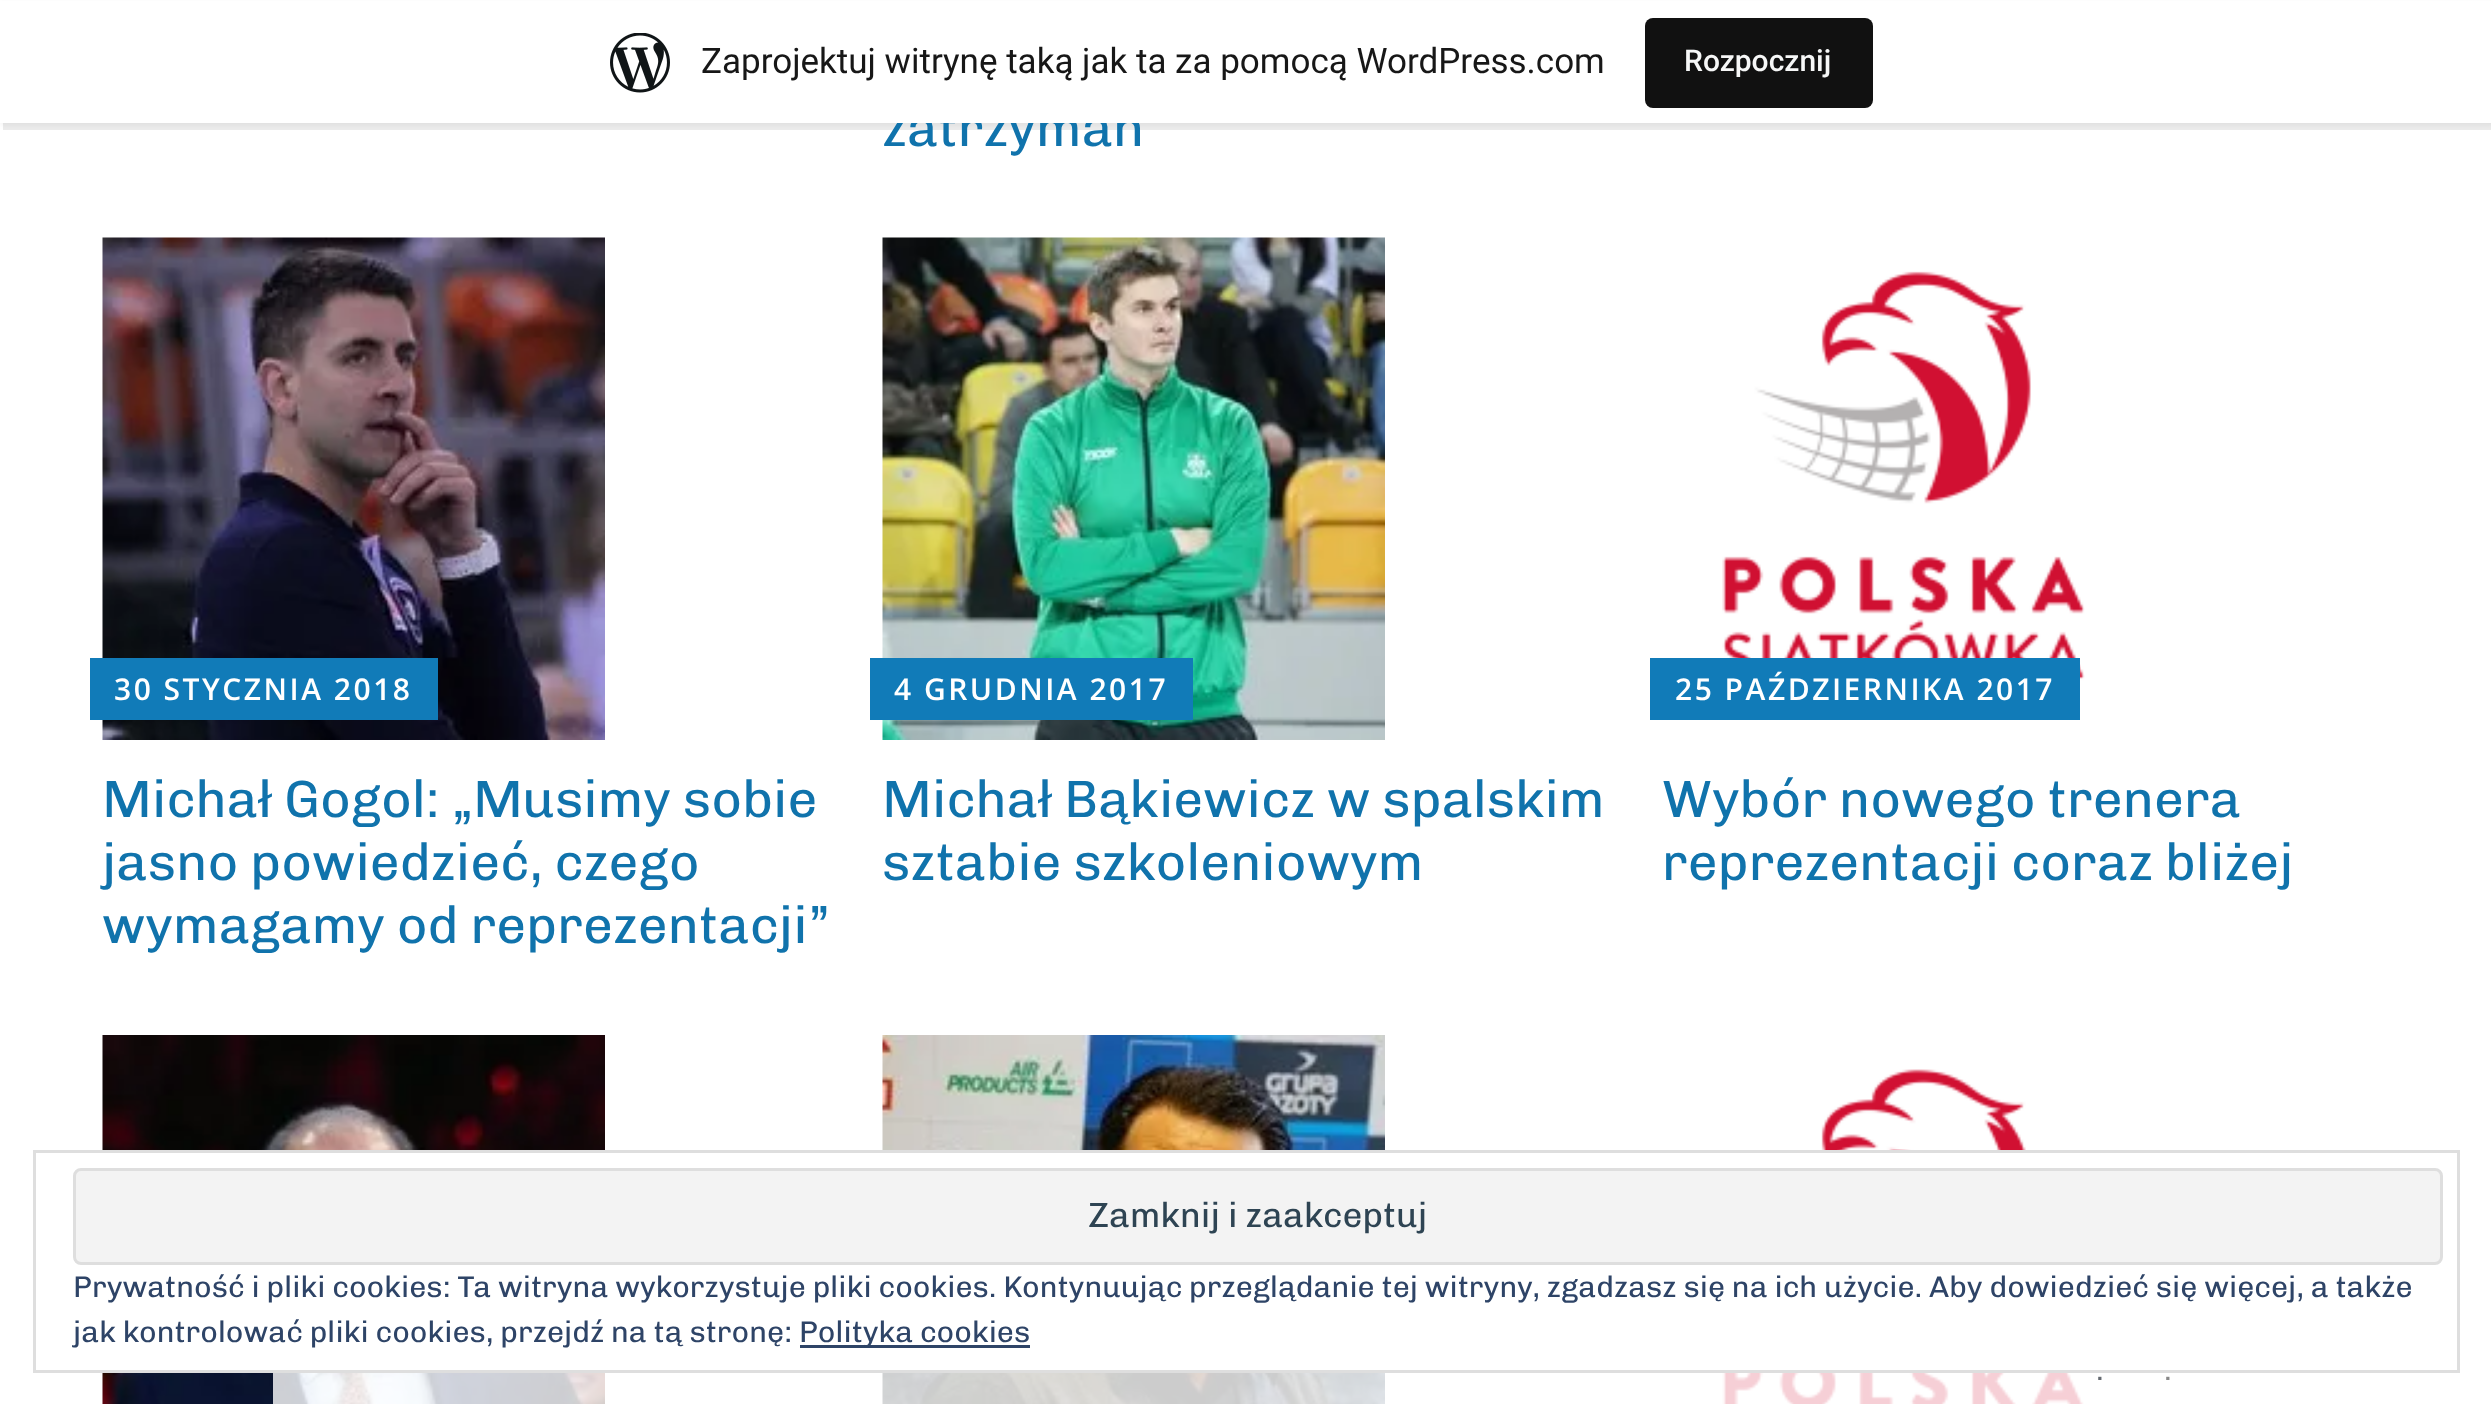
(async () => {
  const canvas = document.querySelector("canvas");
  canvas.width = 2491;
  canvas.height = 1404;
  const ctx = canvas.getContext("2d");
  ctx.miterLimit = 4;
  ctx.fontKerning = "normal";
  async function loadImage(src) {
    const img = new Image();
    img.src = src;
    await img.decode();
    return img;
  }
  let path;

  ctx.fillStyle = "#ffffff";
  ctx.fillRect(0, 0, 2491, 1404);
  ctx.fillStyle = "rgba(0, 0, 0, 0.05)";
  ctx.filter = "blur(2.5px)";
  ctx.beginPath();
  ctx.rect(0, 3, 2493, 122);
  ctx.fill();
  ctx.filter = "none";
  ctx.fillStyle = "rgba(0, 0, 0, 0.08)";
  path = new Path2D("M3 122V130H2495V8H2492V122Z");
  ctx.fill(path);
  ctx.drawImage(await loadImage("img/2.png"), 102, 237, 503, 503);
  ctx.fillStyle = "#117bb8";
  ctx.fillRect(90, 658, 348, 62);
  ctx.drawImage(await loadImage("img/3.png"), 882, 237, 503, 503);
  ctx.fillRect(870, 658, 323, 62);
  ctx.drawImage(await loadImage("img/4.png"), 1722, 271, 363, 410);
  ctx.fillRect(1650, 658, 430, 62);
  ctx.drawImage(await loadImage("img/5.png"), 102, 1035, 503, 369);
  ctx.drawImage(await loadImage("img/6.png"), 882, 1035, 503, 369);
  ctx.drawImage(await loadImage("img/7.png"), 1722, 1069, 362, 335);
  ctx.fillStyle = "#ffffff";
  ctx.fillRect(102, 1153, 1967, 217);
  ctx.strokeStyle = "#dedede";
  ctx.lineWidth = 3;
  ctx.strokeRect(34.5, 1151.5, 2424, 220);
  ctx.fillStyle = "#f3f3f3";
  ctx.beginPath();
  ctx.roundRect(74.5, 1169.5, 2367, 94, 6.5);
  ctx.fill();
  ctx.stroke();
  ctx.fillStyle = "#2e4467";
  ctx.fillRect(800, 1345, 230, 3);
  ctx.fillStyle = "rgba(255, 255, 255, 0.8)";
  ctx.fillRect(273, 1373, 1811, 31);
  ctx.font = "52.5px Chivo";
  ctx.fillStyle = "#1073ac";
  ctx.fillText("zatrzymań", 882, 146);
  ctx.fillStyle = "#ffffff";
  ctx.fillRect(0, 1, 2491, 122);
  ctx.drawImage(await loadImage("img/1.png"), 610, 33, 60, 60);
  ctx.font = "35px Roboto";
  ctx.fillStyle = "#171717";
  ctx.fillText("Zaprojektuj witrynę taką jak ta za pomocą WordPress.com", 701, 73);
  ctx.fillStyle = "#111111";
  ctx.beginPath();
  ctx.roundRect(1645, 18, 228, 90, 8);
  ctx.fill();
  ctx.font = "500 30px Roboto";
  ctx.fillStyle = "#f6f7f7";
  ctx.fillText("Rozpocznij", 1684, 71);
  ctx.letterSpacing = "2.5px";
  ctx.font = "600 30px Open Sans";
  ctx.fillStyle = "#ffffff";
  ctx.fillText("30 STYCZNIA 2018", 114, 700);
  ctx.letterSpacing = "0px";
  ctx.font = "52.5px Chivo";
  ctx.fillStyle = "#1073ac";
  for (const [text, x, y] of [
    ["Michał Gogol: „Musimy sobie", 102, 817],
    ["jasno powiedzieć, czego", 102, 880],
    ["wymagamy od reprezentacji”", 102, 943],
  ]) {
    ctx.fillText(text, x, y);
  }
  ctx.letterSpacing = "2.5px";
  ctx.font = "600 30px Open Sans";
  ctx.fillStyle = "#ffffff";
  ctx.fillText("4 GRUDNIA 2017", 894, 700);
  ctx.letterSpacing = "0px";
  ctx.font = "52.5px Chivo";
  ctx.fillStyle = "#1073ac";
  ctx.fillText("Michał Bąkiewicz w spalskim", 882, 817);
  ctx.fillText("sztabie szkoleniowym", 882, 880);
  ctx.letterSpacing = "2.5px";
  ctx.font = "600 30px Open Sans";
  ctx.fillStyle = "#ffffff";
  ctx.fillText("25 PAŹDZIERNIKA 2017", 1675, 700);
  ctx.letterSpacing = "0px";
  ctx.font = "52.5px Chivo";
  ctx.fillStyle = "#1073ac";
  ctx.fillText("Wybór nowego trenera", 1662, 817);
  ctx.fillText("reprezentacji coraz bliżej", 1662, 880);
  ctx.font = "35px Chivo";
  ctx.fillStyle = "#2e4453";
  ctx.fillText("Zamknij i zaakceptuj", 1088, 1227);
  ctx.font = "30px Chivo";
  ctx.fillStyle = "#2e4467";
  for (const [text, x, y] of [
    ["Prywatność i pliki cookies: Ta witryna wykorzystuje pliki cookies. Kontynuując przeglądanie tej witryny, zgadzasz się na ich użycie. Aby dowiedzieć się więcej, a także", 73, 1297],
    ["jak kontrolować pliki cookies, przejdź na tą stronę:", 73, 1342],
    ["Polityka cookies", 799, 1342],
  ]) {
    ctx.fillText(text, x, y);
  }
  ctx.fillStyle = "#646970";
  ctx.fillText(".", 2096, 1380);
  ctx.fillStyle = "#888888";
  ctx.fillText(".", 2164, 1380);
})();
